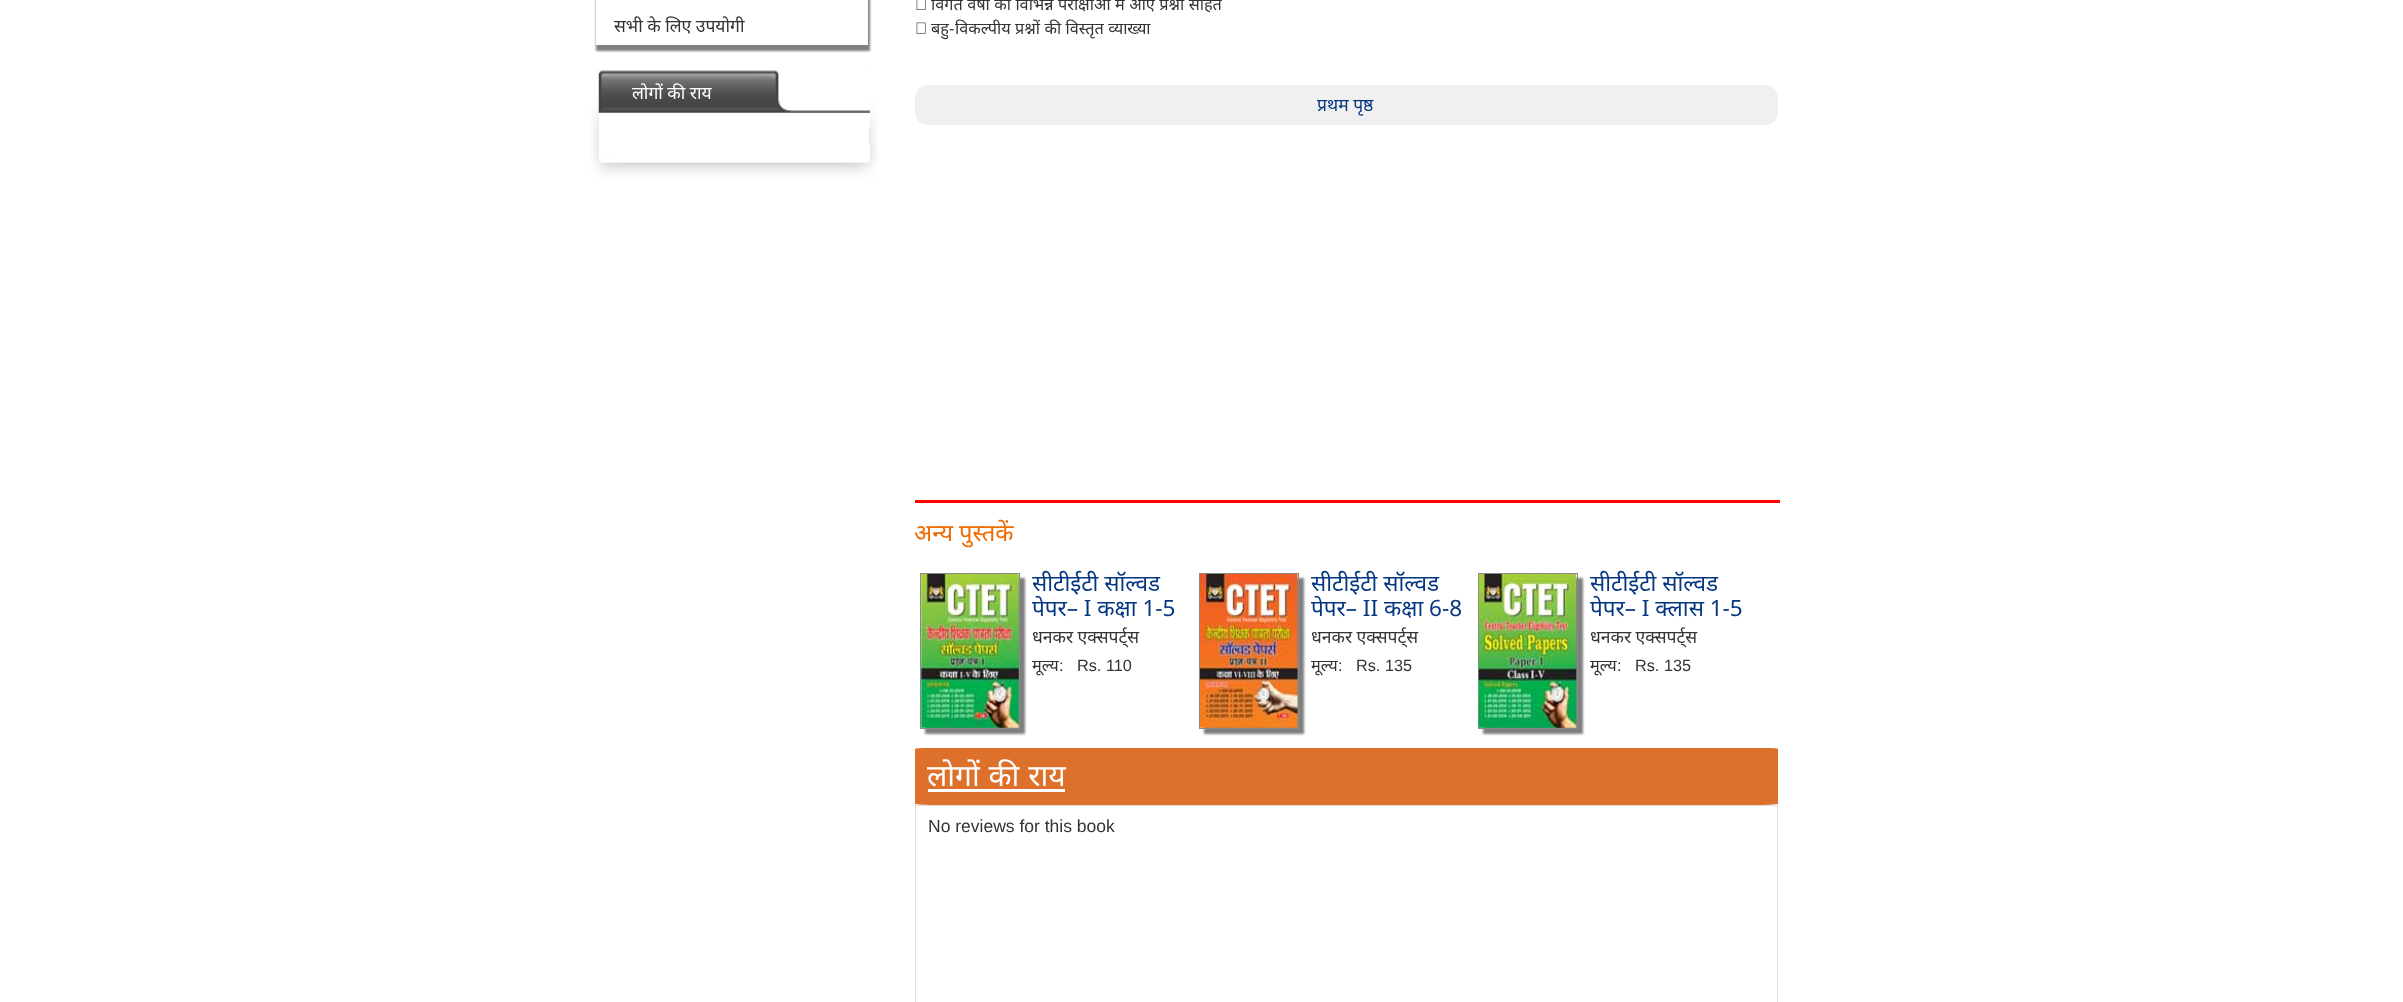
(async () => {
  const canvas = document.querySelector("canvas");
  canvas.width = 2403;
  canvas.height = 1002;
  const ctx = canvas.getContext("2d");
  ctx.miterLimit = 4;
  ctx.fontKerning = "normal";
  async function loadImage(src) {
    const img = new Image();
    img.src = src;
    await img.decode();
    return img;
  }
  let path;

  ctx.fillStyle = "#ffffff";
  ctx.fillRect(0, 0, 2403, 1002);
  ctx.save();
  path = new Path2D("M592 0H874V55H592ZM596-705H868V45H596Z");
  ctx.clip(path, "evenodd");
  ctx.fillStyle = "rgba(42, 41, 41, 0.6)";
  ctx.filter = "blur(1px)";
  ctx.beginPath();
  ctx.rect(596, -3, 274, 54);
  ctx.fill();
  ctx.filter = "none";
  ctx.restore();
  ctx.drawImage(await loadImage("img/1.png"), 591, 70, 286, 112);
  ctx.drawImage(await loadImage("img/2.png"), 591, 70, 287, 58);
  ctx.drawImage(await loadImage("img/3.png"), 591, 144, 287, 38);
  ctx.drawImage(await loadImage("img/4.png"), 916, 0, 10, 10);
  ctx.drawImage(await loadImage("img/5.png"), 916, 22, 10, 12);
  ctx.fillStyle = "#f0f0f0";
  ctx.beginPath();
  ctx.roundRect(915, 85, 863, 40, 13);
  ctx.fill();
  ctx.fillStyle = "#ff0000";
  ctx.fillRect(915, 500, 865, 3);
  ctx.fillStyle = "rgba(42, 41, 41, 0.6)";
  ctx.filter = "blur(1px)";
  ctx.beginPath();
  ctx.rect(925, 578, 100, 156);
  ctx.fill();
  ctx.filter = "none";
  ctx.strokeStyle = "#8a8a8a";
  ctx.strokeRect(920.5, 573.5, 99, 155);
  ctx.drawImage(await loadImage("img/6.png"), 921, 574, 98, 154);
  ctx.filter = "blur(1px)";
  ctx.beginPath();
  ctx.rect(1204, 578, 100, 156);
  ctx.fill();
  ctx.filter = "none";
  ctx.strokeRect(1199.5, 573.5, 99, 155);
  ctx.drawImage(await loadImage("img/7.png"), 1200, 574, 98, 154);
  ctx.filter = "blur(1px)";
  ctx.beginPath();
  ctx.rect(1483, 578, 100, 156);
  ctx.fill();
  ctx.filter = "none";
  ctx.strokeRect(1478.5, 573.5, 99, 155);
  ctx.drawImage(await loadImage("img/8.png"), 1478, 574, 99, 154);
  ctx.fillStyle = "#dd712c";
  path = new Path2D("M932 748H1760C1770 748 1778 748 1778 749V804C1778 804 1770 805 1760 805H932C923 805 915 804 915 804V749C915 748 923 748 932 748Z");
  ctx.fill(path);
  ctx.fillStyle = "#ffffff";
  ctx.fillRect(928, 789, 137, 3);
  ctx.strokeStyle = "#e6dbdb";
  ctx.strokeRect(915.5, 805.5, 862, 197);
  ctx.font = "17.5px Noto Sans";
  ctx.fillStyle = "#333333";
  ctx.fillText("सभी के लिए उपयोगी", 614, 32);
  ctx.fillStyle = "#ffffff";
  ctx.fillText("लोगों की राय", 632, 99);
  ctx.wordSpacing = "0.25px";
  ctx.font = "16.25px Noto Sans";
  ctx.fillStyle = "#333333";
  ctx.fillText("विगत वर्षों की विभिन्न परीक्षाओं में आए प्रश्नों सहित", 931, 10);
  ctx.wordSpacing = "0px";
  ctx.fillText("बहु", 931, 34);
  ctx.font = "16.25px Liberation Sans";
  ctx.fillText("-", 949, 34);
  ctx.wordSpacing = "0.25px";
  ctx.font = "16.25px Noto Sans";
  ctx.fillText("विकल्पीय प्रश्नों की विस्तृत व्याख्या", 955, 34);
  ctx.wordSpacing = "0px";
  ctx.font = "17.5px Noto Sans";
  ctx.fillStyle = "#053680";
  ctx.fillText("प्रथम पृष्ठ", 1317, 111);
  ctx.font = "23.75px Noto Sans";
  ctx.fillStyle = "#ee6b01";
  ctx.fillText("अन्य पुस्तकें", 914, 541);
  ctx.font = "22.5px Noto Sans";
  ctx.fillStyle = "#053680";
  ctx.fillText("सीटीईटी सॉल्वड", 1032, 591);
  ctx.fillText("पेपर– I कक्षा 1-5", 1032, 616);
  ctx.font = "17.5px Noto Sans";
  ctx.fillStyle = "#333333";
  ctx.fillText("धनकर एक्सपर्ट्स", 1032, 643);
  ctx.font = "16.25px Noto Sans";
  ctx.fillText("मूल्य", 1032, 671);
  ctx.font = "16.25px Liberation Sans";
  ctx.fillText(":", 1059, 671);
  ctx.fillText("Rs. 110", 1077, 671);
  ctx.font = "22.5px Noto Sans";
  ctx.fillStyle = "#053680";
  ctx.fillText("सीटीईटी सॉल्वड", 1311, 591);
  ctx.fillText("पेपर– II कक्षा 6-8", 1311, 616);
  ctx.font = "17.5px Noto Sans";
  ctx.fillStyle = "#333333";
  ctx.fillText("धनकर एक्सपर्ट्स", 1311, 643);
  ctx.font = "16.25px Noto Sans";
  ctx.fillText("मूल्य", 1311, 671);
  ctx.font = "16.25px Liberation Sans";
  ctx.fillText(":", 1338, 671);
  ctx.fillText("Rs. 135", 1356, 671);
  ctx.font = "22.5px Noto Sans";
  ctx.fillStyle = "#053680";
  ctx.fillText("सीटीईटी सॉल्वड", 1590, 591);
  ctx.fillText("पेपर– I क्लास 1-5", 1590, 616);
  ctx.font = "17.5px Noto Sans";
  ctx.fillStyle = "#333333";
  ctx.fillText("धनकर एक्सपर्ट्स", 1590, 643);
  ctx.font = "16.25px Noto Sans";
  ctx.fillText("मूल्य", 1590, 671);
  ctx.font = "16.25px Liberation Sans";
  ctx.fillText(":", 1617, 671);
  ctx.fillText("Rs. 135", 1635, 671);
  ctx.wordSpacing = "1px";
  ctx.font = "30px Noto Sans";
  ctx.fillStyle = "#ffffff";
  ctx.fillText("लोगों की राय", 927, 786);
  ctx.wordSpacing = "0px";
  ctx.font = "17.5px Liberation Sans";
  ctx.fillStyle = "#333333";
  ctx.fillText("No reviews for this book", 928, 832);
})();
